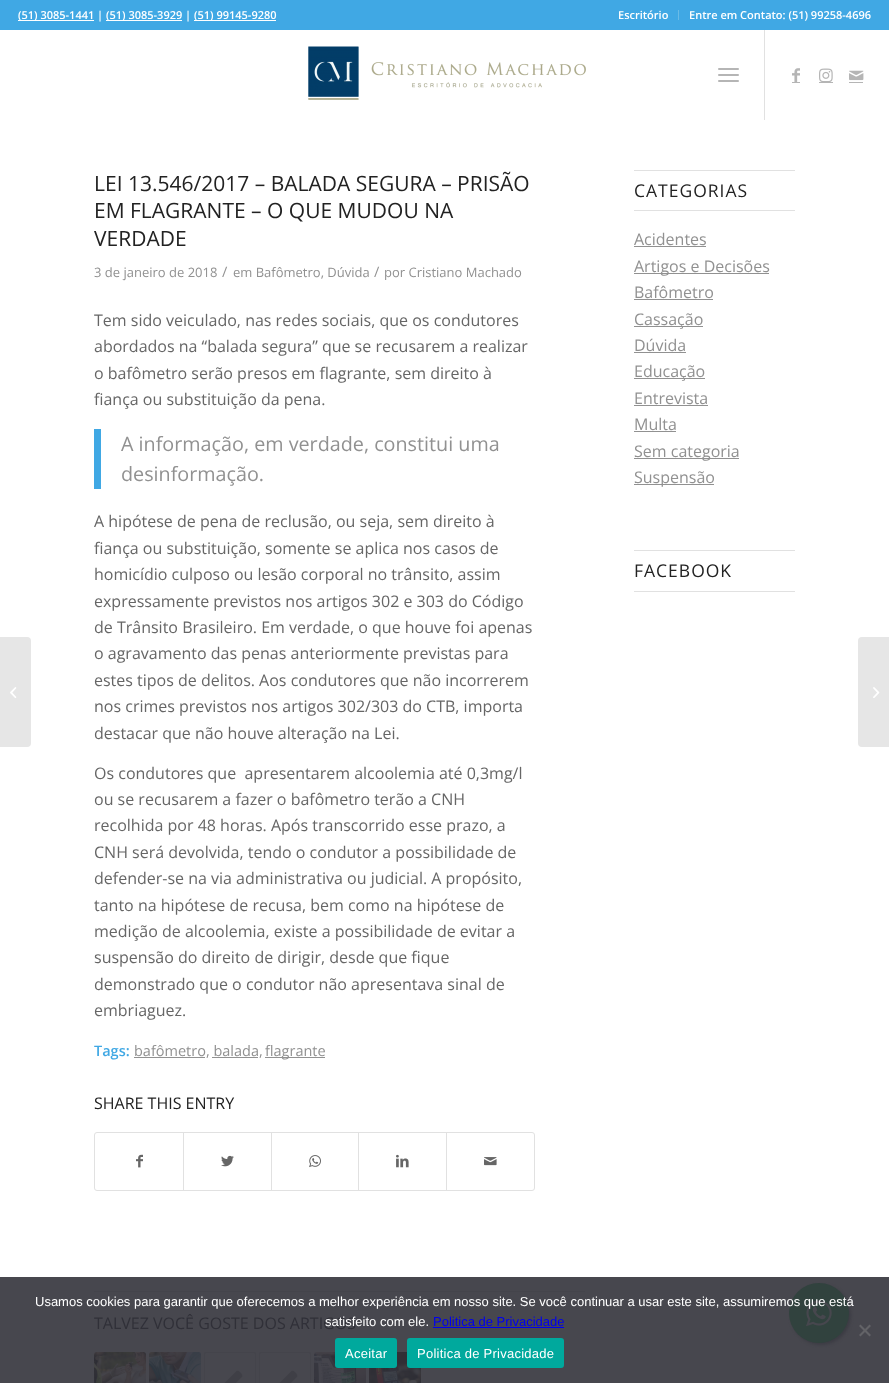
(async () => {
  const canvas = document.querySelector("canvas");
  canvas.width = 889;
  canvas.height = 1383;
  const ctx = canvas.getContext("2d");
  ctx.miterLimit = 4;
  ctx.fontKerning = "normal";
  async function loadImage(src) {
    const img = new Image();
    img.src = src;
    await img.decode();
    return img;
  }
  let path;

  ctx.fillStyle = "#ffffff";
  ctx.fillRect(0, 0, 889, 1383);
  for (const [x, y, w, h, color] of [
    [0, 1277, 889, 106, "#47474e"],
    [0, 0, 889, 30, "#40a8e4"],
    [18, 20, 76, 1, "#ffffff"],
    [106, 20, 76, 1, "#ffffff"],
    [194, 20, 82, 1, "#ffffff"],
    [678, 10, 1, 10, "#6abbe6"],
  ]) {
    ctx.fillStyle = color;
    ctx.fillRect(x, y, w, h);
  }
  ctx.drawImage(await loadImage("img/1.png"), 308, 46, 278, 54);
  ctx.fillStyle = "#e1e1e1";
  ctx.fillRect(764, 30, 1, 90);
  ctx.fillStyle = "#b5b5b5";
  ctx.beginPath();
  ctx.roundRect(718, 74, 21, 2, 1);
  ctx.fill();
  ctx.beginPath();
  ctx.roundRect(718, 68, 21, 2, 1);
  ctx.fill();
  ctx.beginPath();
  ctx.roundRect(718, 80, 21, 2, 1);
  ctx.fill();
  ctx.drawImage(await loadImage("img/2.png"), 792, 68, 8, 14);
  ctx.fillRect(792, 82, 8, 1);
  ctx.drawImage(await loadImage("img/3.png"), 819, 68, 14, 14);
  ctx.fillRect(819, 82, 14, 1);
  ctx.drawImage(await loadImage("img/4.png"), 849, 70, 15, 11);
  ctx.fillRect(849, 82, 14, 1);
  ctx.fillStyle = "#e6e6e6";
  ctx.beginPath();
  ctx.roundRect(0, 637, 31, 110, [0, 4, 4, 0]);
  ctx.fill();
  ctx.drawImage(await loadImage("img/5.png"), 10, 687, 7, 11);
  for (const [x, y, w, h, color] of [
    [94, 429, 7, 60, "#40a8e4"],
    [134, 1057, 71, 1, "#919191"],
    [212, 1057, 46, 1, "#919191"],
    [265, 1057, 60, 1, "#919191"],
  ]) {
    ctx.fillStyle = color;
    ctx.fillRect(x, y, w, h);
  }
  ctx.beginPath();
  ctx.roundRect(94.5, 1132.5, 440, 58, 2.5);
  ctx.strokeStyle = "#e1e1e1";
  ctx.stroke();
  ctx.drawImage(await loadImage("img/6.png"), 136, 1154, 7, 14);
  ctx.fillStyle = "#e1e1e1";
  ctx.fillRect(183, 1133, 1, 57);
  ctx.drawImage(await loadImage("img/7.png"), 221, 1155, 13, 12);
  ctx.fillRect(271, 1133, 1, 57);
  ctx.drawImage(await loadImage("img/8.png"), 309, 1155, 12, 13);
  ctx.fillRect(358, 1133, 1, 57);
  ctx.drawImage(await loadImage("img/9.png"), 396, 1154, 13, 14);
  ctx.fillRect(446, 1133, 1, 57);
  ctx.drawImage(await loadImage("img/10.png"), 484, 1157, 13, 9);
  ctx.fillStyle = "#44444b";
  ctx.fillRect(94, 1291, 491, 1);
  ctx.drawImage(await loadImage("img/11.png"), 94, 1352, 52, 31);
  ctx.drawImage(await loadImage("img/12.png"), 149, 1352, 52, 31);
  ctx.beginPath();
  ctx.roundRect(204.5, 1352.5, 51, 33, 1.5);
  ctx.strokeStyle = "#44444b";
  ctx.stroke();
  ctx.drawImage(await loadImage("img/13.png"), 224, 1370, 19, 13);
  ctx.beginPath();
  ctx.roundRect(259.5, 1352.5, 51, 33, 1.5);
  ctx.stroke();
  ctx.drawImage(await loadImage("img/13.png"), 279, 1370, 19, 13);
  ctx.drawImage(await loadImage("img/14.png"), 314, 1352, 52, 31);
  ctx.drawImage(await loadImage("img/15.png"), 369, 1352, 52, 31);
  for (const [x, y, w, h, color] of [
    [634, 170, 161, 1, "#e1e1e1"],
    [634, 210, 161, 1, "#e1e1e1"],
    [634, 246, 72, 1, "#919191"],
    [634, 273, 135, 1, "#919191"],
    [634, 299, 79, 1, "#919191"],
    [634, 326, 69, 1, "#919191"],
    [634, 352, 52, 1, "#919191"],
    [634, 378, 71, 1, "#919191"],
    [634, 405, 74, 1, "#919191"],
    [634, 431, 42, 1, "#919191"],
    [634, 458, 105, 1, "#919191"],
    [634, 484, 80, 1, "#919191"],
    [634, 550, 161, 1, "#e1e1e1"],
    [634, 591, 161, 1, "#e1e1e1"],
  ]) {
    ctx.fillStyle = color;
    ctx.fillRect(x, y, w, h);
  }
  ctx.fillStyle = "#e6e6e6";
  ctx.beginPath();
  ctx.roundRect(858, 637, 31, 110, [4, 0, 0, 4]);
  ctx.fill();
  ctx.drawImage(await loadImage("img/16.png"), 873, 687, 7, 11);
  ctx.fillStyle = "#3c3c44";
  ctx.filter = "blur(1.5px)";
  ctx.beginPath();
  ctx.roundRect(791, 1285, 60, 60, 30);
  ctx.fill();
  ctx.filter = "none";
  ctx.fillStyle = "#31423e";
  ctx.beginPath();
  ctx.arc(819, 1313, 30, 0, Math.PI * 2);
  ctx.fill();
  ctx.drawImage(await loadImage("img/17.png"), 806, 1300, 26, 27);
  ctx.fillStyle = "#0000ee";
  ctx.fillRect(433, 1327, 131, 1);
  ctx.fillStyle = "#636367";
  path = new Path2D("M869.5 1324.5L871 1326L860.5 1336.5L859 1335Z");
  ctx.fill(path);
  path = new Path2D("M859 1326L860.5 1324.5L871 1335L869.5 1336.5Z");
  ctx.fill(path);
  ctx.fillStyle = "#00a99d";
  ctx.beginPath();
  ctx.roundRect(335, 1338, 62, 30, 3);
  ctx.fill();
  ctx.beginPath();
  ctx.roundRect(407, 1338, 157, 30, 3);
  ctx.fill();
  ctx.font = "600 11px Open Sans";
  ctx.fillStyle = "#ffffff";
  for (const [text, x, y] of [
    ["(51) 3085-1441 |", 18, 19],
    ["(51) 3085-3929 |", 106, 19],
    ["(51) 99145-9280", 194, 19],
    ["Escritório", 618, 19],
    ["Entre em Contato: (51) 99258-4696", 689, 19],
  ]) {
    ctx.fillText(text, x, y);
  }
  ctx.font = "21px Open Sans";
  ctx.fillStyle = "#222222";
  for (const [text, x, y] of [
    ["LEI 13.546/2017 – BALADA SEGURA – PRISÃO", 94, 191],
    ["EM FLAGRANTE – O QUE MUDOU NA", 94, 218],
    ["VERDADE", 94, 246],
  ]) {
    ctx.fillText(text, x, y);
  }
  ctx.font = "13px Open Sans";
  ctx.fillStyle = "#919191";
  ctx.fillText("3 de janeiro de 2018", 94, 277);
  ctx.font = "14.5px Open Sans";
  ctx.fillText("/", 222, 277);
  ctx.font = "13px Open Sans";
  ctx.fillText("em Bafômetro, Dúvida", 233, 277);
  ctx.font = "14.5px Open Sans";
  ctx.fillText("/", 374, 277);
  ctx.font = "13px Open Sans";
  ctx.fillText("por Cristiano Machado", 384, 277);
  ctx.font = "16px Open Sans";
  ctx.fillStyle = "#666666";
  for (const [text, x, y] of [
    ["Tem sido veiculado, nas redes sociais, que os condutores", 94, 326],
    ["abordados na “balada segura” que se recusarem a realizar", 94, 352],
    ["o bafômetro serão presos em flagrante, sem direito à", 94, 379],
    ["fiança ou substituição da pena.", 94, 405],
  ]) {
    ctx.fillText(text, x, y);
  }
  ctx.font = "19.75px Open Sans";
  ctx.fillStyle = "#919191";
  ctx.fillText("A informação, em verdade, constitui uma", 121, 451);
  ctx.fillText("desinformação.", 121, 481);
  ctx.font = "16px Open Sans";
  ctx.fillStyle = "#666666";
  for (const [text, x, y] of [
    ["A hipótese de pena de reclusão, ou seja, sem direito à", 94, 527],
    ["fiança ou substituição, somente se aplica nos casos de", 94, 554],
    ["homicídio culposo ou lesão corporal no trânsito, assim", 94, 580],
    ["expressamente previstos nos artigos 302 e 303 do Código", 94, 607],
    ["de Trânsito Brasileiro. Em verdade, o que houve foi apenas", 94, 633],
    ["o agravamento das penas anteriormente previstas para", 94, 659],
    ["estes tipos de delitos. Aos condutores que não incorrerem", 94, 686],
    ["nos crimes previstos nos artigos 302/303 do CTB, importa", 94, 712],
    ["destacar que não houve alteração na Lei.", 94, 739],
    ["Os condutores que  apresentarem alcoolemia até 0,3mg/l", 94, 779],
    ["ou se recusarem a fazer o bafômetro terão a CNH", 94, 805],
    ["recolhida por 48 horas. Após transcorrido esse prazo, a", 94, 831],
    ["CNH será devolvida, tendo o condutor a possibilidade de", 94, 858],
    ["defender-se na via administrativa ou judicial. A propósito,", 94, 884],
    ["tanto na hipótese de recusa, bem como na hipótese de", 94, 911],
    ["medição de alcoolemia, existe a possibilidade de evitar a", 94, 937],
    ["suspensão do direito de dirigir, desde que fique", 94, 963],
    ["demonstrado que o condutor não apresentava sinal de", 94, 990],
    ["embriaguez.", 94, 1016],
  ]) {
    ctx.fillText(text, x, y);
  }
  ctx.font = "600 14.5px Open Sans";
  ctx.fillStyle = "#40a8e4";
  ctx.fillText("Tags:", 94, 1056);
  ctx.font = "14.5px Open Sans";
  ctx.fillStyle = "#919191";
  ctx.fillText("bafômetro, balada,", 134, 1056);
  ctx.fillText("flagrante", 265, 1056);
  ctx.font = "16px Open Sans";
  ctx.fillStyle = "#222222";
  ctx.fillText("SHARE THIS ENTRY", 94, 1109);
  ctx.fillStyle = "#303038";
  ctx.fillText("TALVEZ VOCÊ GOSTE DOS ARTIGOS", 94, 1329);
  ctx.letterSpacing = "1px";
  ctx.font = "17.5px Open Sans";
  ctx.fillStyle = "#222222";
  ctx.fillText("CATEGORIAS", 634, 197);
  ctx.letterSpacing = "0px";
  ctx.font = "16px Open Sans";
  ctx.fillStyle = "#919191";
  for (const [text, x, y] of [
    ["Acidentes", 634, 245],
    ["Artigos e Decisões", 634, 272],
    ["Bafômetro", 634, 298],
    ["Cassação", 634, 325],
    ["Dúvida", 634, 351],
    ["Educação", 634, 377],
    ["Entrevista", 634, 404],
    ["Multa", 634, 430],
    ["Sem categoria", 634, 457],
    ["Suspensão", 634, 483],
  ]) {
    ctx.fillText(text, x, y);
  }
  ctx.letterSpacing = "1px";
  ctx.font = "17.5px Open Sans";
  ctx.fillStyle = "#222222";
  ctx.fillText("FACEBOOK", 634, 577);
  ctx.letterSpacing = "0px";
  ctx.font = "13px Liberation Sans";
  ctx.fillStyle = "#ffffff";
  ctx.fillText("Usamos cookies para garantir que oferecemos a melhor experiência em nosso site. Se você continuar a usar este site, assumiremos que está", 35, 1306);
  ctx.fillText("satisfeito com ele.", 325, 1326);
  ctx.fillStyle = "#0000ee";
  ctx.fillText("Politica de Privacidade", 433, 1326);
  ctx.letterSpacing = "0.25px";
  ctx.fillStyle = "#ffffff";
  ctx.fillText("Aceitar", 345, 1358);
  ctx.fillText("Politica de Privacidade", 417, 1358);
})();
